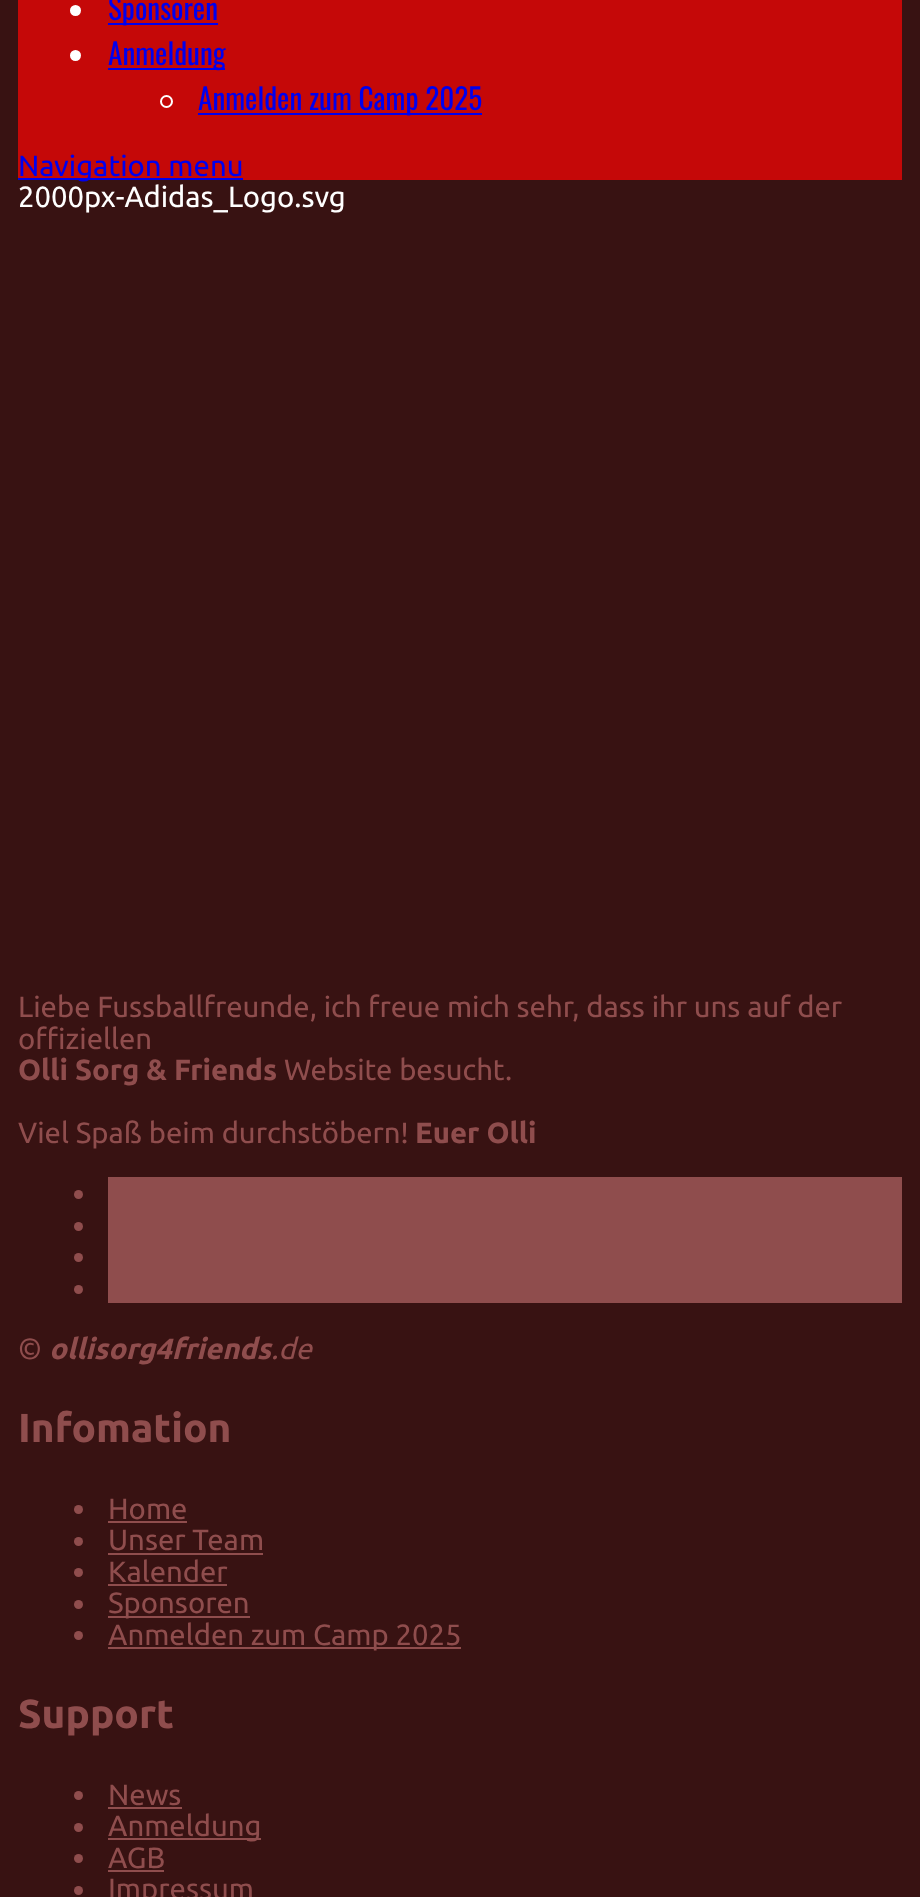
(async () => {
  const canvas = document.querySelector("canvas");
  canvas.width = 920;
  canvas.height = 1897;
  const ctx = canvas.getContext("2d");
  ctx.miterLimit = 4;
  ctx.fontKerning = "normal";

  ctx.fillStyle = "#381212";
  ctx.fillRect(0, 0, 920, 1897);
  ctx.fillStyle = "#c50808";
  ctx.fillRect(18, 0, 884, 180);
  ctx.fillStyle = "#ffffff";
  ctx.beginPath();
  ctx.arc(75.5, 10.5, 5.5, 0, Math.PI * 2);
  ctx.fill();
  ctx.fillStyle = "#0000ee";
  ctx.fillRect(108, 23, 110, 2);
  ctx.fillStyle = "#ffffff";
  ctx.beginPath();
  ctx.arc(75.5, 55.5, 5.5, 0, Math.PI * 2);
  ctx.fill();
  ctx.fillStyle = "#0000ee";
  ctx.fillRect(108, 68, 117, 2);
  ctx.beginPath();
  ctx.arc(166.5, 101.5, 5.5, 0, Math.PI * 2);
  ctx.strokeStyle = "#ffffff";
  ctx.lineWidth = 2;
  ctx.stroke();
  for (const [x, y, w, h, color] of [
    [198, 113, 284, 2, "#0000ee"],
    [18, 178, 225, 2, "#0000ee"],
    [108, 1177, 794, 126, "#8f4d4d"],
  ]) {
    ctx.fillStyle = color;
    ctx.fillRect(x, y, w, h);
  }
  ctx.beginPath();
  ctx.arc(78.5, 1194.5, 4.5, 0, Math.PI * 2);
  ctx.fill();
  ctx.beginPath();
  ctx.arc(78.5, 1226.5, 4.5, 0, Math.PI * 2);
  ctx.fill();
  ctx.beginPath();
  ctx.arc(78.5, 1257.5, 4.5, 0, Math.PI * 2);
  ctx.fill();
  ctx.beginPath();
  ctx.arc(78.5, 1289.5, 4.5, 0, Math.PI * 2);
  ctx.fill();
  ctx.beginPath();
  ctx.arc(78.5, 1509.5, 4.5, 0, Math.PI * 2);
  ctx.fill();
  ctx.fillRect(108, 1521, 79, 2);
  ctx.beginPath();
  ctx.arc(78.5, 1541.5, 4.5, 0, Math.PI * 2);
  ctx.fill();
  ctx.fillRect(108, 1553, 155, 2);
  ctx.beginPath();
  ctx.arc(78.5, 1572.5, 4.5, 0, Math.PI * 2);
  ctx.fill();
  ctx.fillRect(108, 1584, 119, 2);
  ctx.beginPath();
  ctx.arc(78.5, 1604.5, 4.5, 0, Math.PI * 2);
  ctx.fill();
  ctx.fillRect(108, 1616, 142, 2);
  ctx.beginPath();
  ctx.arc(78.5, 1635.5, 4.5, 0, Math.PI * 2);
  ctx.fill();
  ctx.fillRect(108, 1647, 353, 2);
  ctx.beginPath();
  ctx.arc(78.5, 1795.5, 4.5, 0, Math.PI * 2);
  ctx.fill();
  ctx.fillRect(108, 1807, 74, 2);
  ctx.beginPath();
  ctx.arc(78.5, 1827.5, 4.5, 0, Math.PI * 2);
  ctx.fill();
  ctx.fillRect(108, 1838, 153, 2);
  ctx.beginPath();
  ctx.arc(78.5, 1858.5, 4.5, 0, Math.PI * 2);
  ctx.fill();
  ctx.fillRect(108, 1870, 56, 2);
  ctx.beginPath();
  ctx.arc(78.5, 1890.5, 4.5, 0, Math.PI * 2);
  ctx.fill();
  ctx.font = "29.25px Oswald";
  ctx.fillStyle = "#0000ee";
  for (const [text, x, y] of [
    ["Sponsoren", 108, 20],
    ["Anmeldung", 108, 65],
    ["Anmelden zum Camp 2025", 198, 110],
  ]) {
    ctx.fillText(text, x, y);
  }
  ctx.font = "29.25px Ubuntu";
  ctx.fillText("Navigation menu", 18, 176);
  ctx.fillStyle = "#ffffff";
  ctx.fillText("2000px-Adidas_Logo.svg", 18, 207);
  ctx.fillStyle = "#8f4d4d";
  ctx.fillText("Liebe Fussballfreunde, ich freue mich sehr, dass ihr uns auf der", 18, 1017);
  ctx.fillText("offiziellen", 18, 1049);
  ctx.font = "bold 29.25px Ubuntu";
  ctx.fillText("Olli Sorg & Friends", 18, 1080);
  ctx.font = "29.25px Ubuntu";
  ctx.fillText("Website besucht.", 284, 1080);
  ctx.fillText("Viel Spaß beim durchstöbern!", 18, 1143);
  ctx.font = "bold 29.25px Ubuntu";
  ctx.fillText("Euer Olli", 415, 1143);
  ctx.font = "29.25px Ubuntu";
  ctx.fillText("©", 18, 1359);
  ctx.font = "italic bold 29.25px Ubuntu";
  ctx.fillText("ollisorg4friends", 49, 1359);
  ctx.font = "italic 29.25px Ubuntu";
  ctx.fillText(".de", 271, 1359);
  ctx.font = "bold 40.5px Ubuntu";
  ctx.fillText("Infomation", 18, 1442);
  ctx.font = "29.25px Ubuntu";
  for (const [text, x, y] of [
    ["Home", 108, 1519],
    ["Unser Team", 108, 1550],
    ["Kalender", 108, 1582],
    ["Sponsoren", 108, 1613],
    ["Anmelden zum Camp 2025", 108, 1645],
  ]) {
    ctx.fillText(text, x, y);
  }
  ctx.font = "bold 40.5px Ubuntu";
  ctx.fillText("Support", 18, 1728);
  ctx.font = "29.25px Ubuntu";
  for (const [text, x, y] of [
    ["News", 108, 1805],
    ["Anmeldung", 108, 1836],
    ["AGB", 108, 1868],
    ["Impressum", 108, 1899],
  ]) {
    ctx.fillText(text, x, y);
  }
})();
